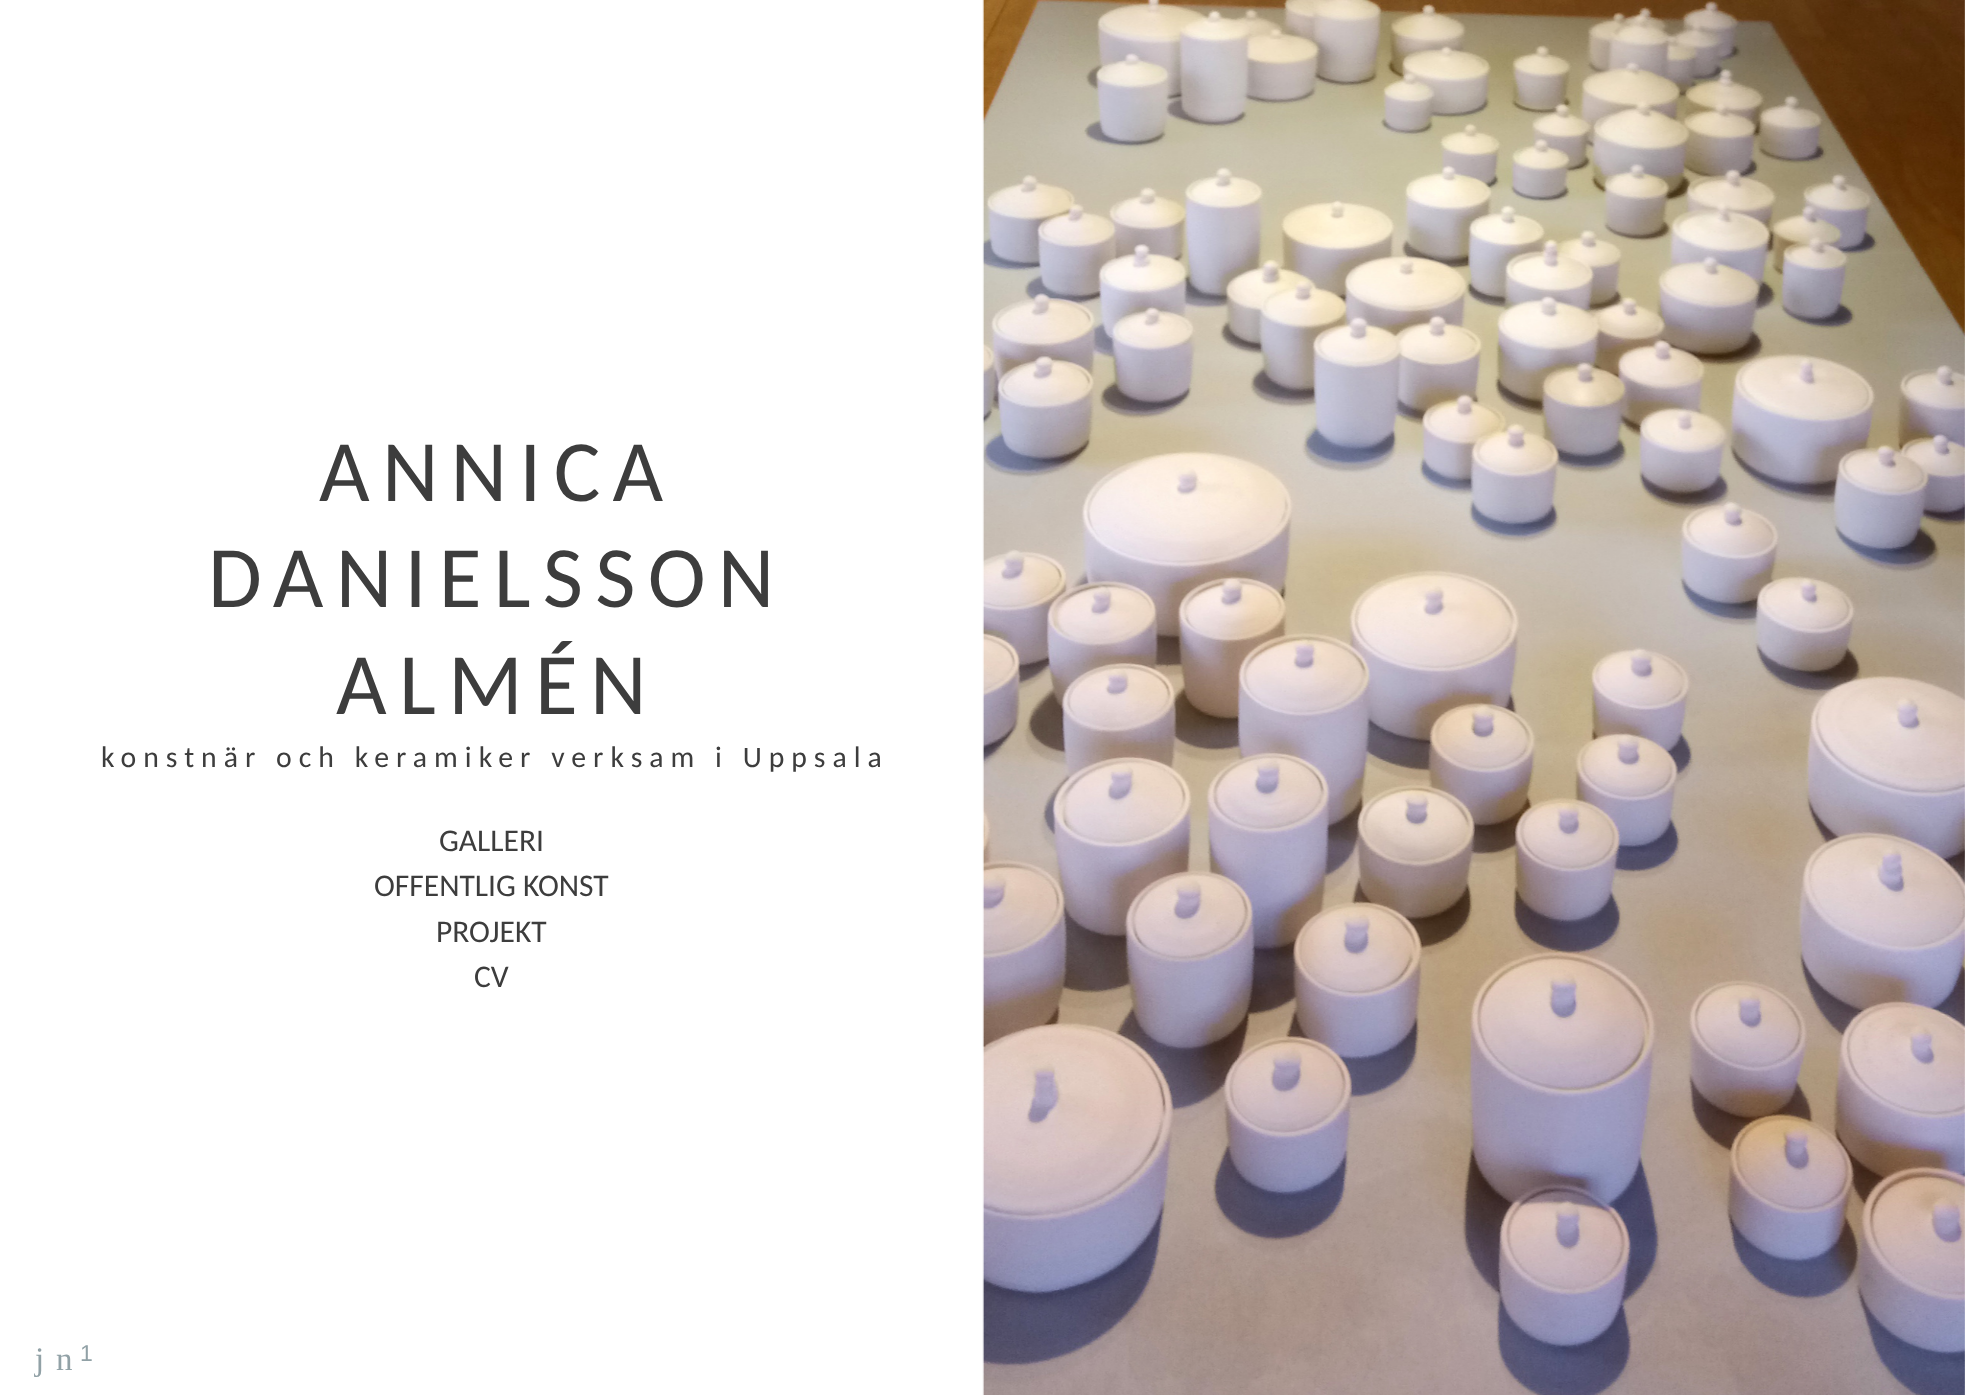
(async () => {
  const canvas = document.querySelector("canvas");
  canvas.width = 1965;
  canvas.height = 1395;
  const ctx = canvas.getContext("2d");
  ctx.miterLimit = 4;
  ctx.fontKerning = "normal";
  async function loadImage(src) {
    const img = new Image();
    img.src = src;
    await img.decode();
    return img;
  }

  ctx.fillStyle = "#ffffff";
  ctx.fillRect(0, 0, 1965, 1395);
  ctx.drawImage(await loadImage("img/1.png"), 982, 0, 983, 1395);
  ctx.letterSpacing = "12.25px";
  ctx.font = "87.5px Carlito";
  ctx.fillStyle = "#3d3d3d";
  for (const [text, x, y] of [
    ["ANNICA", 319, 501],
    ["DANIELSSON", 208, 607],
    ["ALMÉN", 336, 714],
  ]) {
    ctx.fillText(text, x, y);
  }
  ctx.letterSpacing = "7px";
  ctx.font = "29.75px Carlito";
  ctx.fillText("konstnär och keramiker verksam i Uppsala", 101, 767);
  ctx.letterSpacing = "0px";
  ctx.font = "31.5px Carlito";
  for (const [text, x, y] of [
    ["GALLERI", 439, 851],
    ["OFFENTLIG KONST", 374, 896],
    ["PROJEKT", 436, 942],
    ["CV", 474, 987],
  ]) {
    ctx.fillText(text, x, y);
  }
  ctx.font = "33px Liberation Serif";
  ctx.fillStyle = "#91a1a6";
  ctx.fillText("j", 35, 1370);
  ctx.fillText("n", 56, 1370);
  ctx.font = "23px Liberation Sans";
  ctx.fillText("1", 80, 1361);
})();
